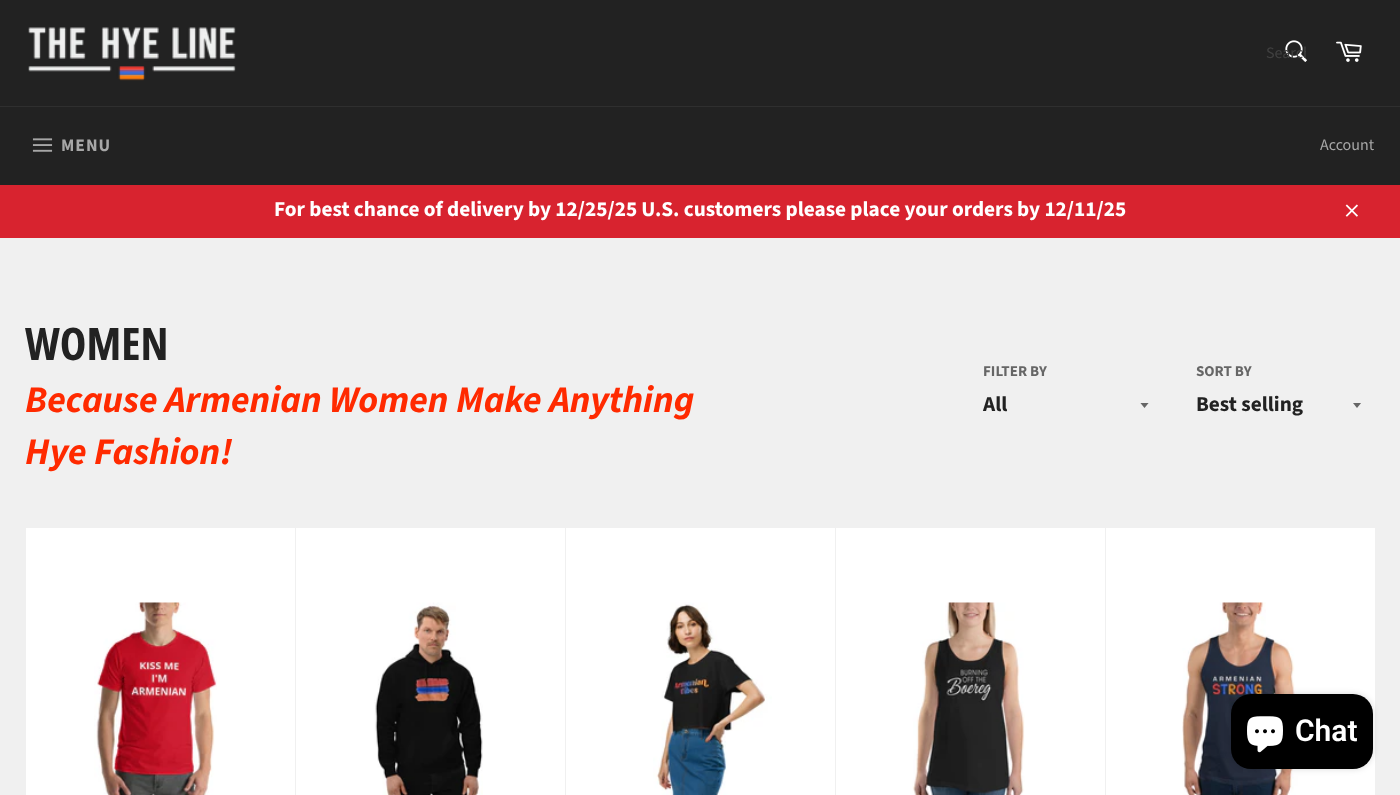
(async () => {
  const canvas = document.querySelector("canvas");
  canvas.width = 1400;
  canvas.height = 795;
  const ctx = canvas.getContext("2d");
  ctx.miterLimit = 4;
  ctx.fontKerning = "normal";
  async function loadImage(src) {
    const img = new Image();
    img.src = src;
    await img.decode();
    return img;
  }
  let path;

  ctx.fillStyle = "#f0f0f0";
  ctx.fillRect(0, 0, 1400, 795);
  ctx.fillStyle = "#222222";
  ctx.fillRect(0, 0, 1400, 106);
  ctx.drawImage(await loadImage("img/1.png"), 28, 27, 208, 54);
  ctx.drawImage(await loadImage("img/2.png"), 1285, 40, 22, 22);
  ctx.drawImage(await loadImage("img/3.png"), 1336, 41, 26, 21);
  ctx.fillRect(0, 107, 1400, 78);
  ctx.fillStyle = "#2f2f2f";
  ctx.fillRect(0, 106, 1400, 1);
  ctx.drawImage(await loadImage("img/4.png"), 32, 138, 21, 14);
  ctx.fillStyle = "#d8232f";
  ctx.fillRect(0, 185, 1400, 53);
  ctx.drawImage(await loadImage("img/5.png"), 1345, 204, 13, 13);
  ctx.save();
  ctx.beginPath();
  ctx.rect(1140, 403, 10, 6);
  ctx.clip();
  ctx.fillStyle = "#666666";
  path = new Path2D("M1140 402.5L1144.5 408L1149 402.5Z");
  ctx.fill(path);
  ctx.restore();
  ctx.save();
  ctx.beginPath();
  ctx.rect(1353, 403, 10, 6);
  ctx.clip();
  ctx.fillStyle = "#666666";
  path = new Path2D("M1352.5 402.5L1357 408L1361.5 402.5Z");
  ctx.fill(path);
  ctx.restore();
  ctx.fillStyle = "#ffffff";
  ctx.fillRect(26, 528, 269, 267);
  ctx.drawImage(await loadImage("img/6.png"), 94, 602, 123, 193);
  ctx.fillRect(296, 528, 269, 267);
  ctx.drawImage(await loadImage("img/7.png"), 374, 602, 109, 193);
  ctx.fillRect(566, 528, 269, 267);
  ctx.drawImage(await loadImage("img/8.png"), 653, 602, 119, 193);
  ctx.fillRect(836, 528, 269, 267);
  ctx.drawImage(await loadImage("img/9.png"), 912, 602, 113, 193);
  ctx.fillRect(1106, 528, 269, 267);
  ctx.drawImage(await loadImage("img/10.png"), 1182, 602, 119, 193);
  ctx.fillStyle = "rgba(0, 0, 0, 0.15)";
  ctx.filter = "blur(3px)";
  ctx.beginPath();
  ctx.roundRect(1231, 694, 142, 75, 20);
  ctx.fill();
  ctx.filter = "none";
  ctx.fillStyle = "#000000";
  ctx.beginPath();
  ctx.roundRect(1231, 694, 142, 75, 20);
  ctx.fill();
  ctx.drawImage(await loadImage("img/11.png"), 1247, 716, 36, 37);
  ctx.save();
  ctx.beginPath();
  ctx.rect(1266, 43, 40, 22);
  ctx.clip();
  ctx.font = "16px Source Sans Pro";
  ctx.fillStyle = "#404040";
  ctx.fillText("Search", 1266, 58);
  ctx.restore();
  ctx.letterSpacing = "1px";
  ctx.font = "bold 17.5px Source Sans Pro";
  ctx.fillStyle = "#a7a7a7";
  ctx.fillText("MENU", 61, 151);
  ctx.letterSpacing = "0px";
  ctx.font = "16px Source Sans Pro";
  ctx.fillText("Account", 1320, 150);
  ctx.font = "bold 21.25px Source Sans Pro";
  ctx.fillStyle = "#ffffff";
  ctx.fillText("For best chance of delivery by 12/25/25 U.S. customers please place your orders by 12/11/25", 274, 216);
  ctx.font = "bold 45px Open Sans Condensed";
  ctx.fillStyle = "#222222";
  ctx.fillText("WOMEN", 25, 360);
  ctx.font = "italic bold 37.5px Source Sans Pro";
  ctx.fillStyle = "#ff2a00";
  ctx.fillText("Because Armenian Women Make Anything", 25, 412);
  ctx.fillText("Hye Fashion!", 25, 464);
  ctx.font = "bold 15px Source Sans Pro";
  ctx.fillStyle = "#666666";
  ctx.fillText("FILTER BY", 983, 376);
  ctx.font = "bold 21.25px Source Sans Pro";
  ctx.fillStyle = "#222222";
  ctx.fillText("All", 983, 411);
  ctx.font = "bold 15px Source Sans Pro";
  ctx.fillStyle = "#666666";
  ctx.fillText("SORT BY", 1196, 376);
  ctx.font = "bold 21.25px Source Sans Pro";
  ctx.fillStyle = "#222222";
  ctx.fillText("Best selling", 1196, 411);
  ctx.font = "600 30px Roboto";
  ctx.fillStyle = "#ffffff";
  ctx.fillText("Chat", 1295, 741);
})();
